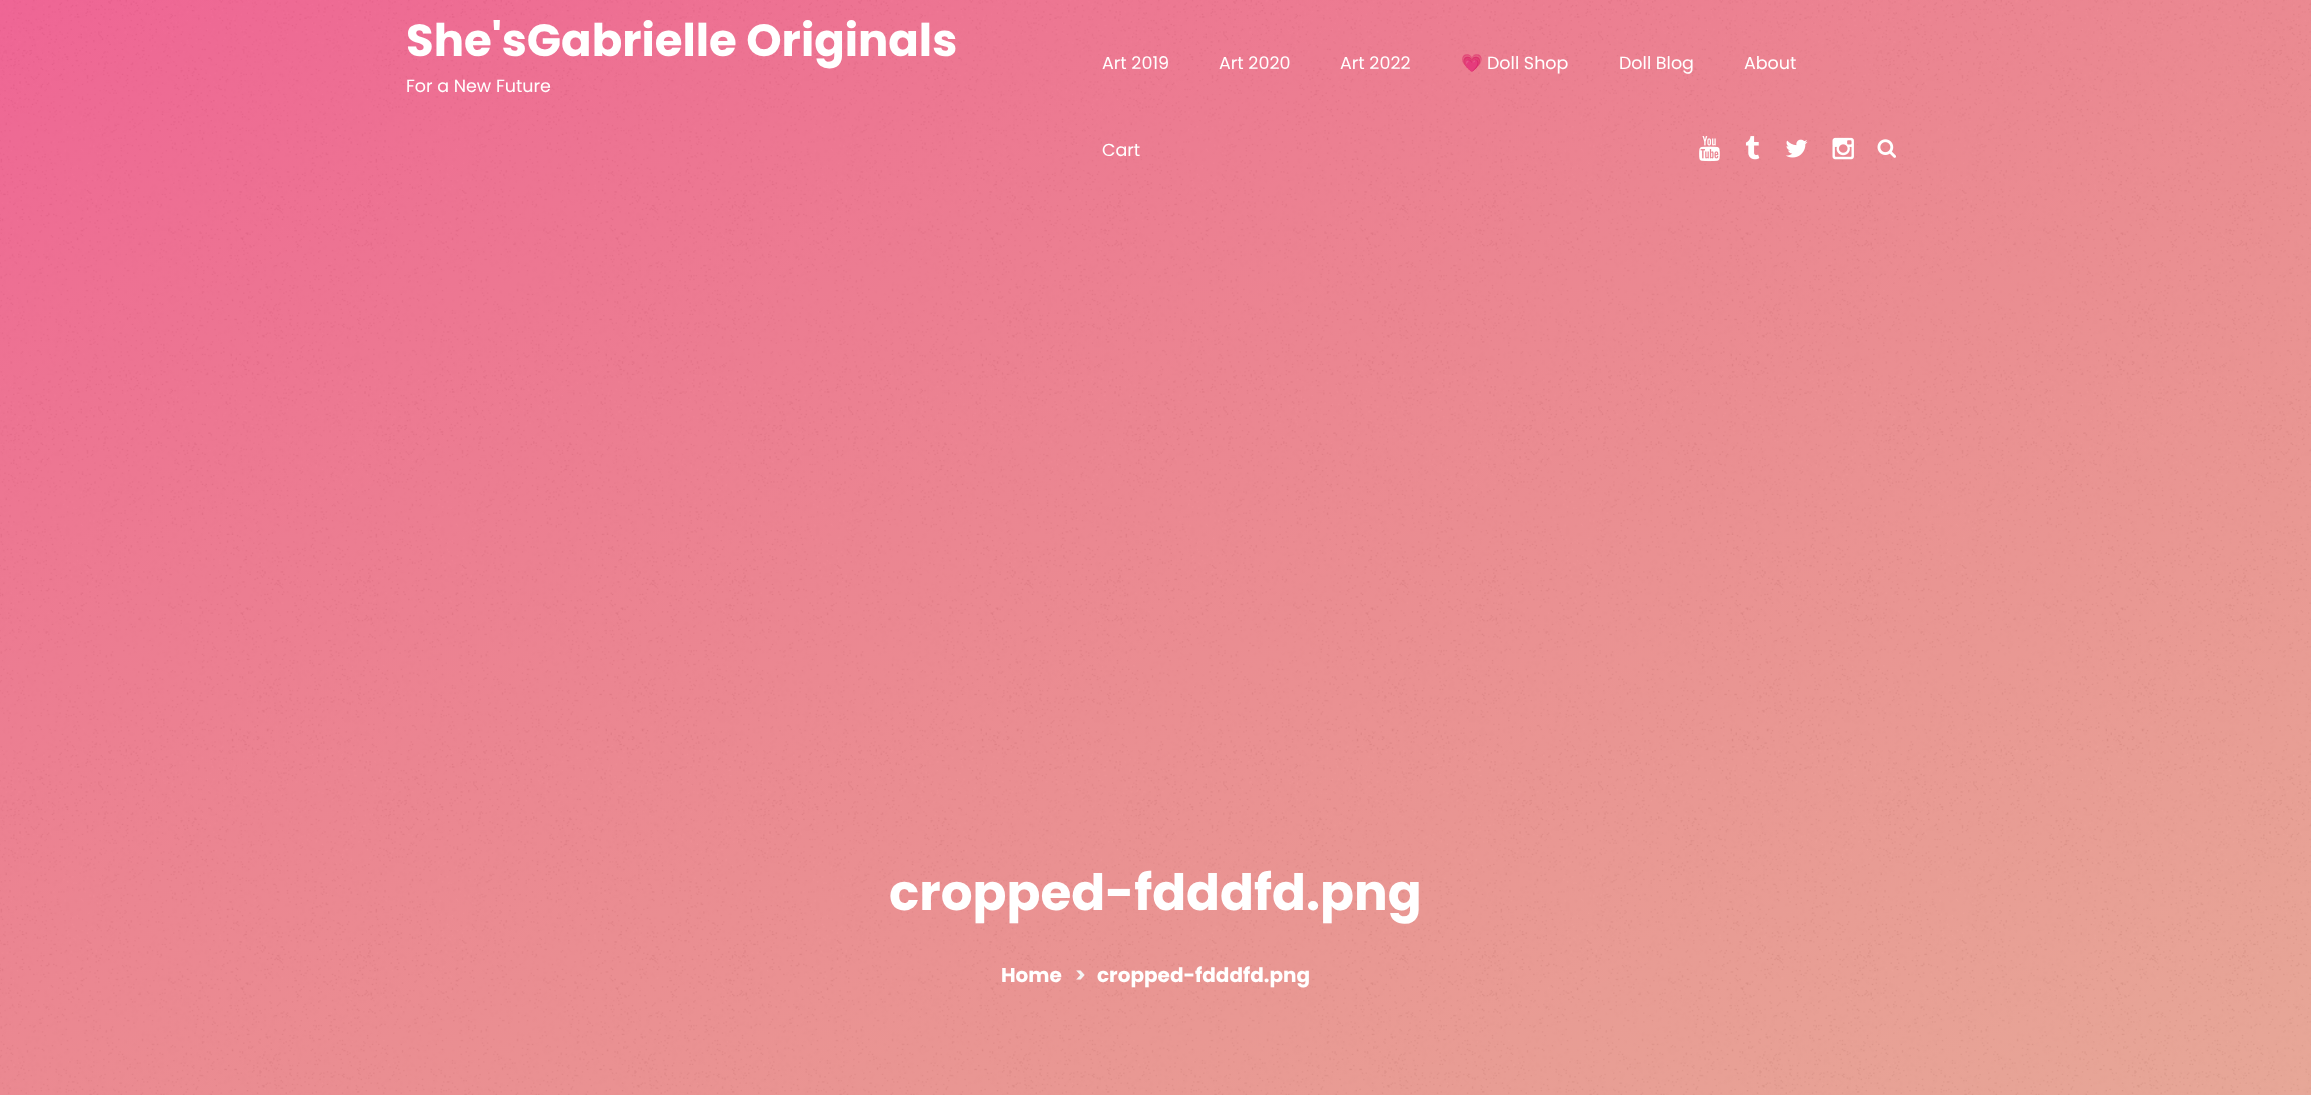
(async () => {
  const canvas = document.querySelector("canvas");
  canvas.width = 2311;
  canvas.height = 1095;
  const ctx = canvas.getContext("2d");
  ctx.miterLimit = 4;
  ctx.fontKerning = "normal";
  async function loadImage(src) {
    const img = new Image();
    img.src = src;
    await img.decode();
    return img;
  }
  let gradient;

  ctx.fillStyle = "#efefef";
  ctx.fillRect(0, 0, 2311, 1095);
  ctx.drawImage(await loadImage("img/6.png"), 0, 0, 2311, 1095);
  gradient = ctx.createLinearGradient(732, -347, 1579, 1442);
  gradient.addColorStop(0, "rgba(255, 0, 89, 0.54)");
  gradient.addColorStop(1, "rgba(255, 50, 0, 0.31)");
  ctx.fillStyle = gradient;
  ctx.fillRect(0, 0, 2311, 1095);
  ctx.drawImage(await loadImage("img/1.png"), 1699, 136, 21, 26);
  ctx.drawImage(await loadImage("img/2.png"), 1745, 136, 15, 24);
  ctx.drawImage(await loadImage("img/3.png"), 1785, 139, 23, 19);
  ctx.drawImage(await loadImage("img/4.png"), 1832, 137, 22, 23);
  ctx.drawImage(await loadImage("img/5.png"), 1877, 139, 19, 19);
  ctx.font = "bold 45px Poppins";
  ctx.fillStyle = "#ffffff";
  ctx.fillText("She'sGabrielle Originals", 406, 56);
  ctx.font = "17.5px Poppins";
  for (const [text, x, y] of [
    ["For a New Future", 406, 92],
    ["Art 2019", 1102, 69],
    ["Art 2020", 1219, 69],
    ["Art 2022", 1340, 69],
  ]) {
    ctx.fillText(text, x, y);
  }
  ctx.font = "17.5px Noto Color Emoji";
  ctx.fillText("💗", 1461, 69);
  ctx.font = "17.5px Poppins";
  for (const [text, x, y] of [
    ["Doll Shop", 1487, 69],
    ["Doll Blog", 1619, 69],
    ["About", 1744, 69],
    ["Cart", 1102, 156],
  ]) {
    ctx.fillText(text, x, y);
  }
  ctx.font = "bold 50px Poppins";
  ctx.fillText("cropped-fdddfd.png", 889, 910);
  ctx.font = "bold 20px Poppins";
  ctx.fillText("Home", 1001, 982);
  ctx.fillStyle = "#f5f5f5";
  ctx.fillText(">", 1075, 982);
  ctx.fillStyle = "#ffffff";
  ctx.fillText("cropped-fdddfd.png", 1097, 982);
})();
